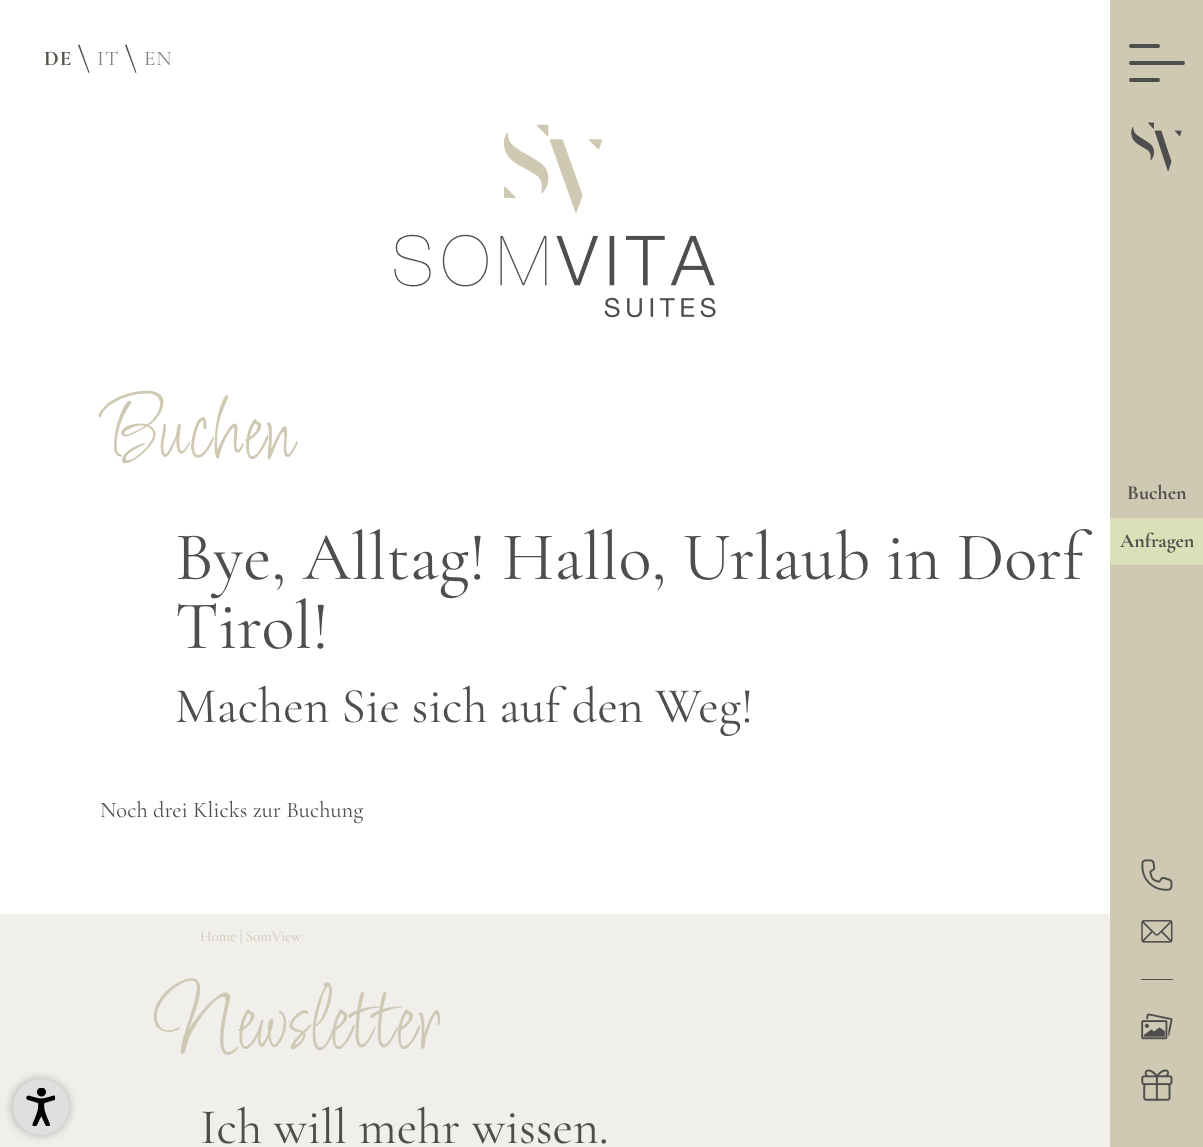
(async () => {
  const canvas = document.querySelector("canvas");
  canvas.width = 1203;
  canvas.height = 1147;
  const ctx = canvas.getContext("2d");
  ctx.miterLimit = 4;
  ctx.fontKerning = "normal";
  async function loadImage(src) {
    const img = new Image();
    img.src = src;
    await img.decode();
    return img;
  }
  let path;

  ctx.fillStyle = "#ffffff";
  ctx.fillRect(0, 0, 1203, 1147);
  ctx.fillStyle = "#f0efeb";
  ctx.fillRect(0, 914, 1110, 233);
  ctx.fillStyle = "rgba(0, 0, 0, 0.22)";
  ctx.filter = "blur(4px)";
  ctx.beginPath();
  ctx.roundRect(11, 1078, 59, 58, 29);
  ctx.fill();
  ctx.filter = "none";
  ctx.fillStyle = "#dfdfdf";
  ctx.beginPath();
  ctx.arc(41, 1107, 28, 0, Math.PI * 2);
  ctx.fill();
  ctx.drawImage(await loadImage("img/1.png"), 26, 1088, 29, 38);
  ctx.fillStyle = "#4e4e4c";
  path = new Path2D("M78 45L79.5 44.5L89.5 72.5L88.5 73Z");
  ctx.fill(path);
  path = new Path2D("M125 45L126.5 44.5L136.5 72.5L135.5 73Z");
  ctx.fill(path);
  ctx.drawImage(await loadImage("img/2.png"), 394, 124, 322, 194);
  ctx.fillStyle = "#cfc9b4";
  ctx.fillRect(1110, 0, 93, 1147);
  ctx.fillStyle = "#4e4e4c";
  ctx.beginPath();
  ctx.roundRect(1129, 44, 31, 4, 2);
  ctx.fill();
  ctx.beginPath();
  ctx.roundRect(1129, 61, 56, 4, 2);
  ctx.fill();
  ctx.beginPath();
  ctx.roundRect(1129, 78, 31, 4, 2);
  ctx.fill();
  ctx.drawImage(await loadImage("img/3.png"), 1131, 122, 51, 50);
  ctx.fillStyle = "#dce0b8";
  ctx.fillRect(1110, 518, 93, 47);
  ctx.drawImage(await loadImage("img/4.png"), 1141, 859, 32, 32);
  ctx.drawImage(await loadImage("img/5.png"), 1141, 920, 32, 23);
  ctx.fillStyle = "#4e4e4c";
  ctx.beginPath();
  ctx.roundRect(1141, 979, 32, 1, 0.5);
  ctx.fill();
  ctx.drawImage(await loadImage("img/6.png"), 1141, 1013, 32, 27);
  ctx.drawImage(await loadImage("img/7.png"), 1141, 1069, 32, 32);
  ctx.letterSpacing = "1px";
  ctx.font = "bold 21px Cormorant Garamond";
  ctx.fillStyle = "#575246";
  ctx.fillText("DE", 44, 65);
  ctx.font = "21px Cormorant Garamond";
  ctx.fillStyle = "#818181";
  ctx.fillText("IT", 97, 65);
  ctx.fillText("EN", 144, 65);
  ctx.letterSpacing = "0px";
  ctx.font = "bold 20px Cormorant Garamond";
  ctx.fillStyle = "#4e4e4c";
  ctx.fillText("Buchen", 1127, 499);
  ctx.fillText("Anfragen", 1120, 547);
  ctx.font = "94px Licorice";
  ctx.fillStyle = "#cfc9b4";
  ctx.fillText("Buchen", 100, 459);
  ctx.font = "68.75px Cormorant Garamond";
  ctx.fillStyle = "#4e4e4c";
  ctx.fillText("Bye, Alltag! Hallo, Urlaub in Dorf", 175, 579);
  ctx.fillText("Tirol!", 175, 648);
  ctx.font = "50px Cormorant Garamond";
  ctx.fillText("Machen Sie sich auf den Weg!", 175, 722);
  ctx.font = "22.5px Cormorant Garamond";
  ctx.fillText("Noch drei Klicks zur Buchung", 100, 817);
  ctx.font = "15px Cormorant Garamond";
  ctx.fillStyle = "#cfc9b4";
  ctx.fillText("Home | SomView", 200, 941);
  ctx.font = "94px Licorice";
  ctx.fillText("Newsletter", 150, 1049);
  ctx.font = "50px Cormorant Garamond";
  ctx.fillStyle = "#4e4e4c";
  ctx.fillText("Ich will mehr wissen.", 200, 1143);
})();
